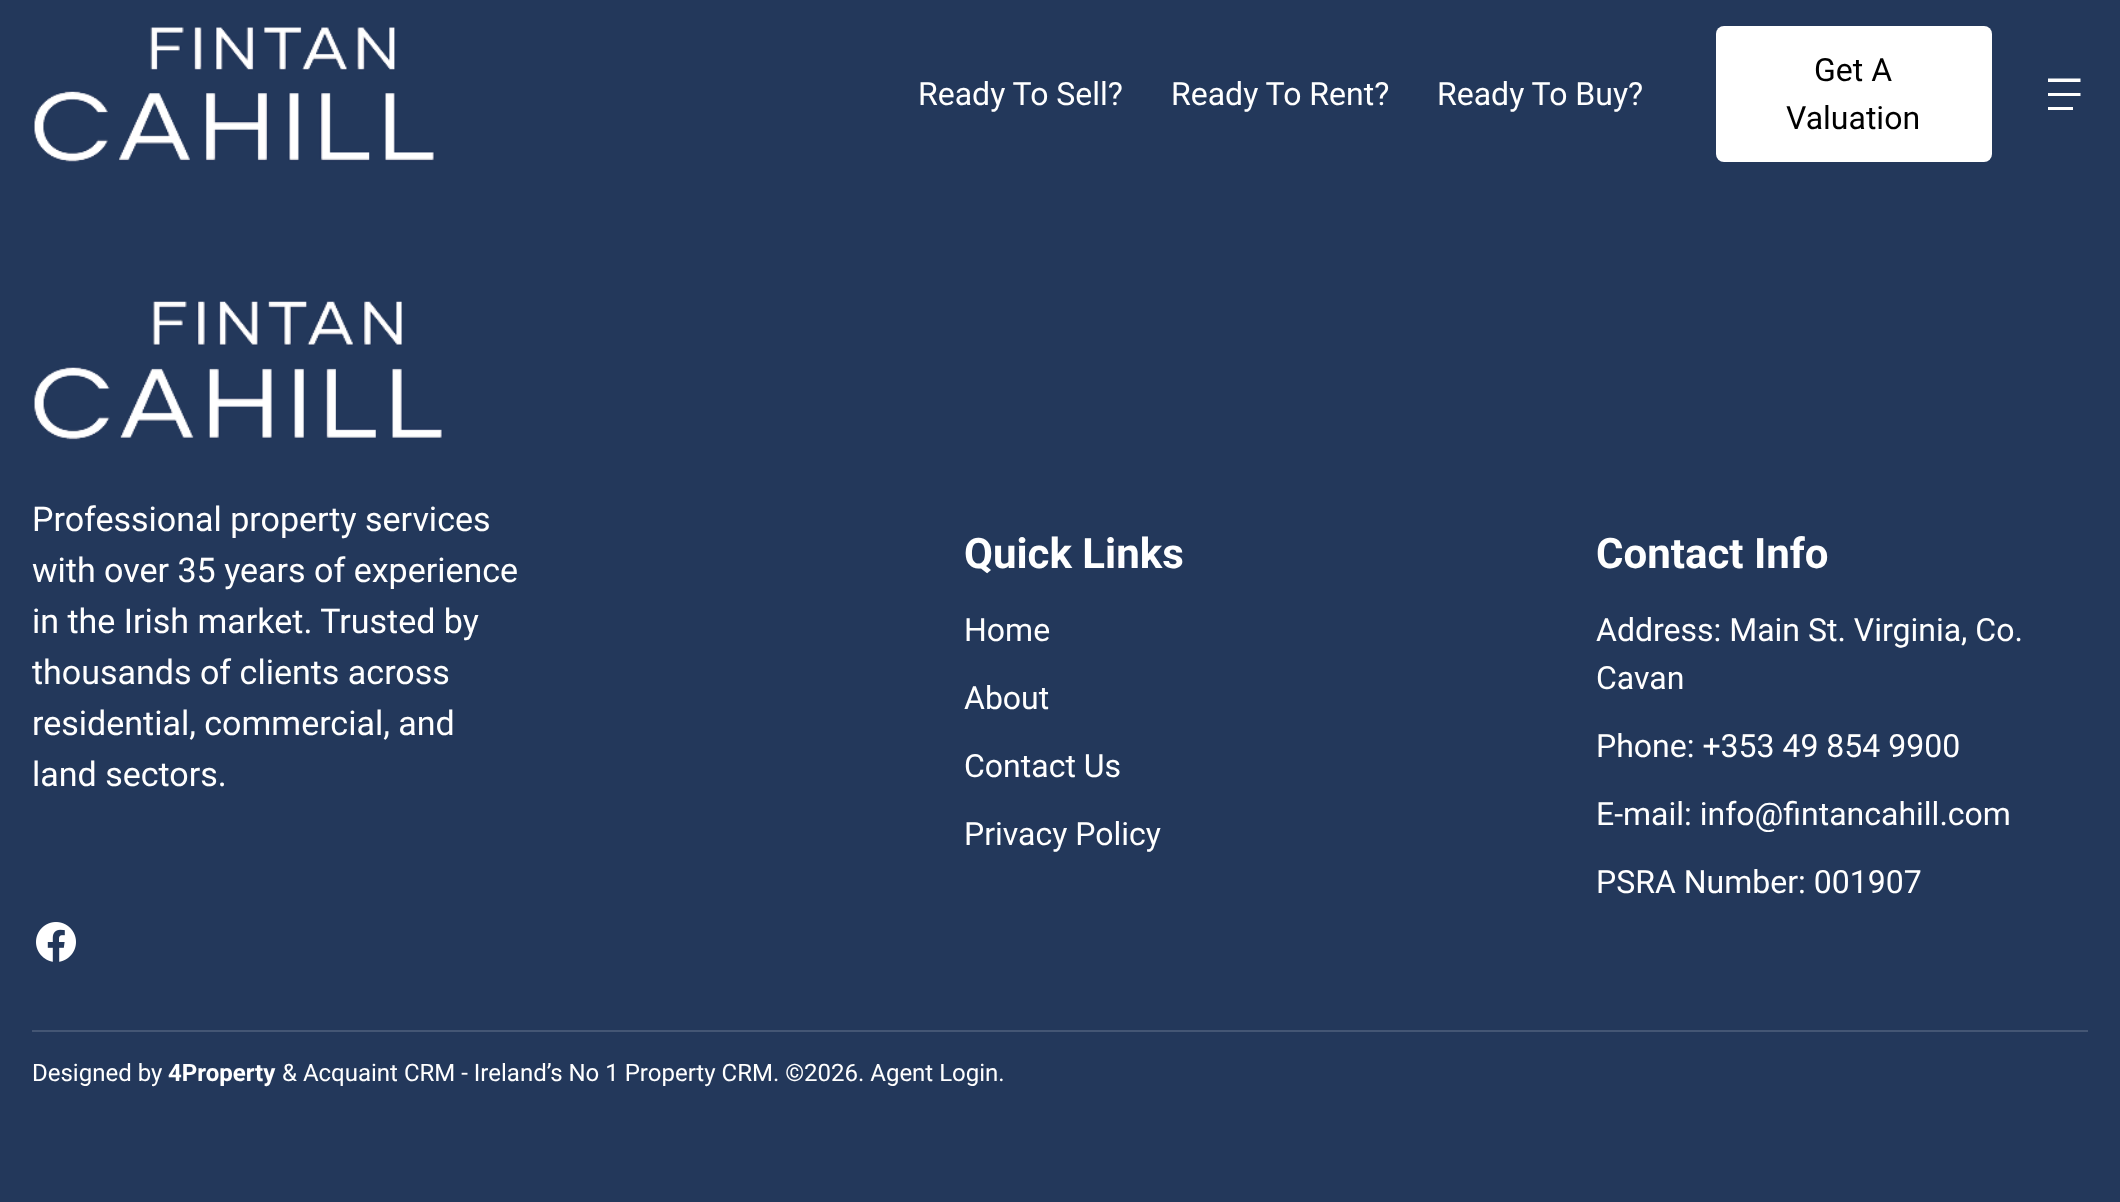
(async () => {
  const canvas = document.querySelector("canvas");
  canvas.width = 2120;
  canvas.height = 1202;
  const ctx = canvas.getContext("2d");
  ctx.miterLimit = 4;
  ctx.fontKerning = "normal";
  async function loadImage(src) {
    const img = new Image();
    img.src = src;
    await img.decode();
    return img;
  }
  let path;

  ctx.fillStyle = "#23385b";
  ctx.fillRect(0, 0, 2120, 1202);
  ctx.drawImage(await loadImage("img/1.png"), 33, 27, 402, 135);
  ctx.fillStyle = "#ffffff";
  ctx.beginPath();
  ctx.roundRect(1716, 26, 276, 136, 8);
  ctx.fill();
  path = new Path2D("M2048 96H2080.5V93H2048ZM2048 110H2073V107H2048ZM2048 78.5V82H2080.5V78.5Z");
  ctx.fill(path);
  ctx.drawImage(await loadImage("img/2.png"), 34, 301, 409, 139);
  ctx.drawImage(await loadImage("img/3.png"), 36, 922, 40, 40);
  ctx.fillStyle = "#445674";
  ctx.fillRect(32, 1030, 2056, 2);
  ctx.font = "32px Roboto";
  ctx.fillStyle = "#ffffff";
  for (const [text, x, y] of [
    ["Ready To Sell?", 918, 105],
    ["Ready To Rent?", 1171, 105],
    ["Ready To Buy?", 1437, 105],
  ]) {
    ctx.fillText(text, x, y);
  }
  ctx.fillStyle = "#000000";
  ctx.fillText("Get A", 1814, 81);
  ctx.fillText("Valuation", 1786, 129);
  ctx.font = "34px Roboto";
  ctx.fillStyle = "#ffffff";
  for (const [text, x, y] of [
    ["Professional property services", 32, 531],
    ["with over 35 years of experience", 32, 582],
    ["in the Irish market. Trusted by", 32, 633],
    ["thousands of clients across", 32, 684],
    ["residential, commercial, and", 32, 735],
    ["land sectors.", 32, 786],
  ]) {
    ctx.fillText(text, x, y);
  }
  ctx.font = "bold 42px Roboto";
  ctx.fillText("Quick Links", 964, 568);
  ctx.font = "32px Roboto";
  for (const [text, x, y] of [
    ["Home", 964, 641],
    ["About", 964, 709],
    ["Contact Us", 964, 777],
    ["Privacy Policy", 964, 845],
  ]) {
    ctx.fillText(text, x, y);
  }
  ctx.font = "bold 42px Roboto";
  ctx.fillText("Contact Info", 1596, 568);
  ctx.font = "32px Roboto";
  for (const [text, x, y] of [
    ["Address: Main St. Virginia, Co.", 1596, 641],
    ["Cavan", 1596, 689],
    ["Phone: +353 49 854 9900", 1596, 757],
    ["E-mail: info@fintancahill.com", 1596, 825],
    ["PSRA Number: 001907", 1596, 893],
  ]) {
    ctx.fillText(text, x, y);
  }
  ctx.font = "24px Roboto";
  ctx.fillText("Designed by", 32, 1081);
  ctx.font = "bold 24px Roboto";
  ctx.fillText("4Property", 168, 1081);
  ctx.font = "24px Roboto";
  ctx.fillText("& Acquaint CRM - Ireland’s No 1 Property CRM. ©2026. Agent Login.", 282, 1081);
})();
